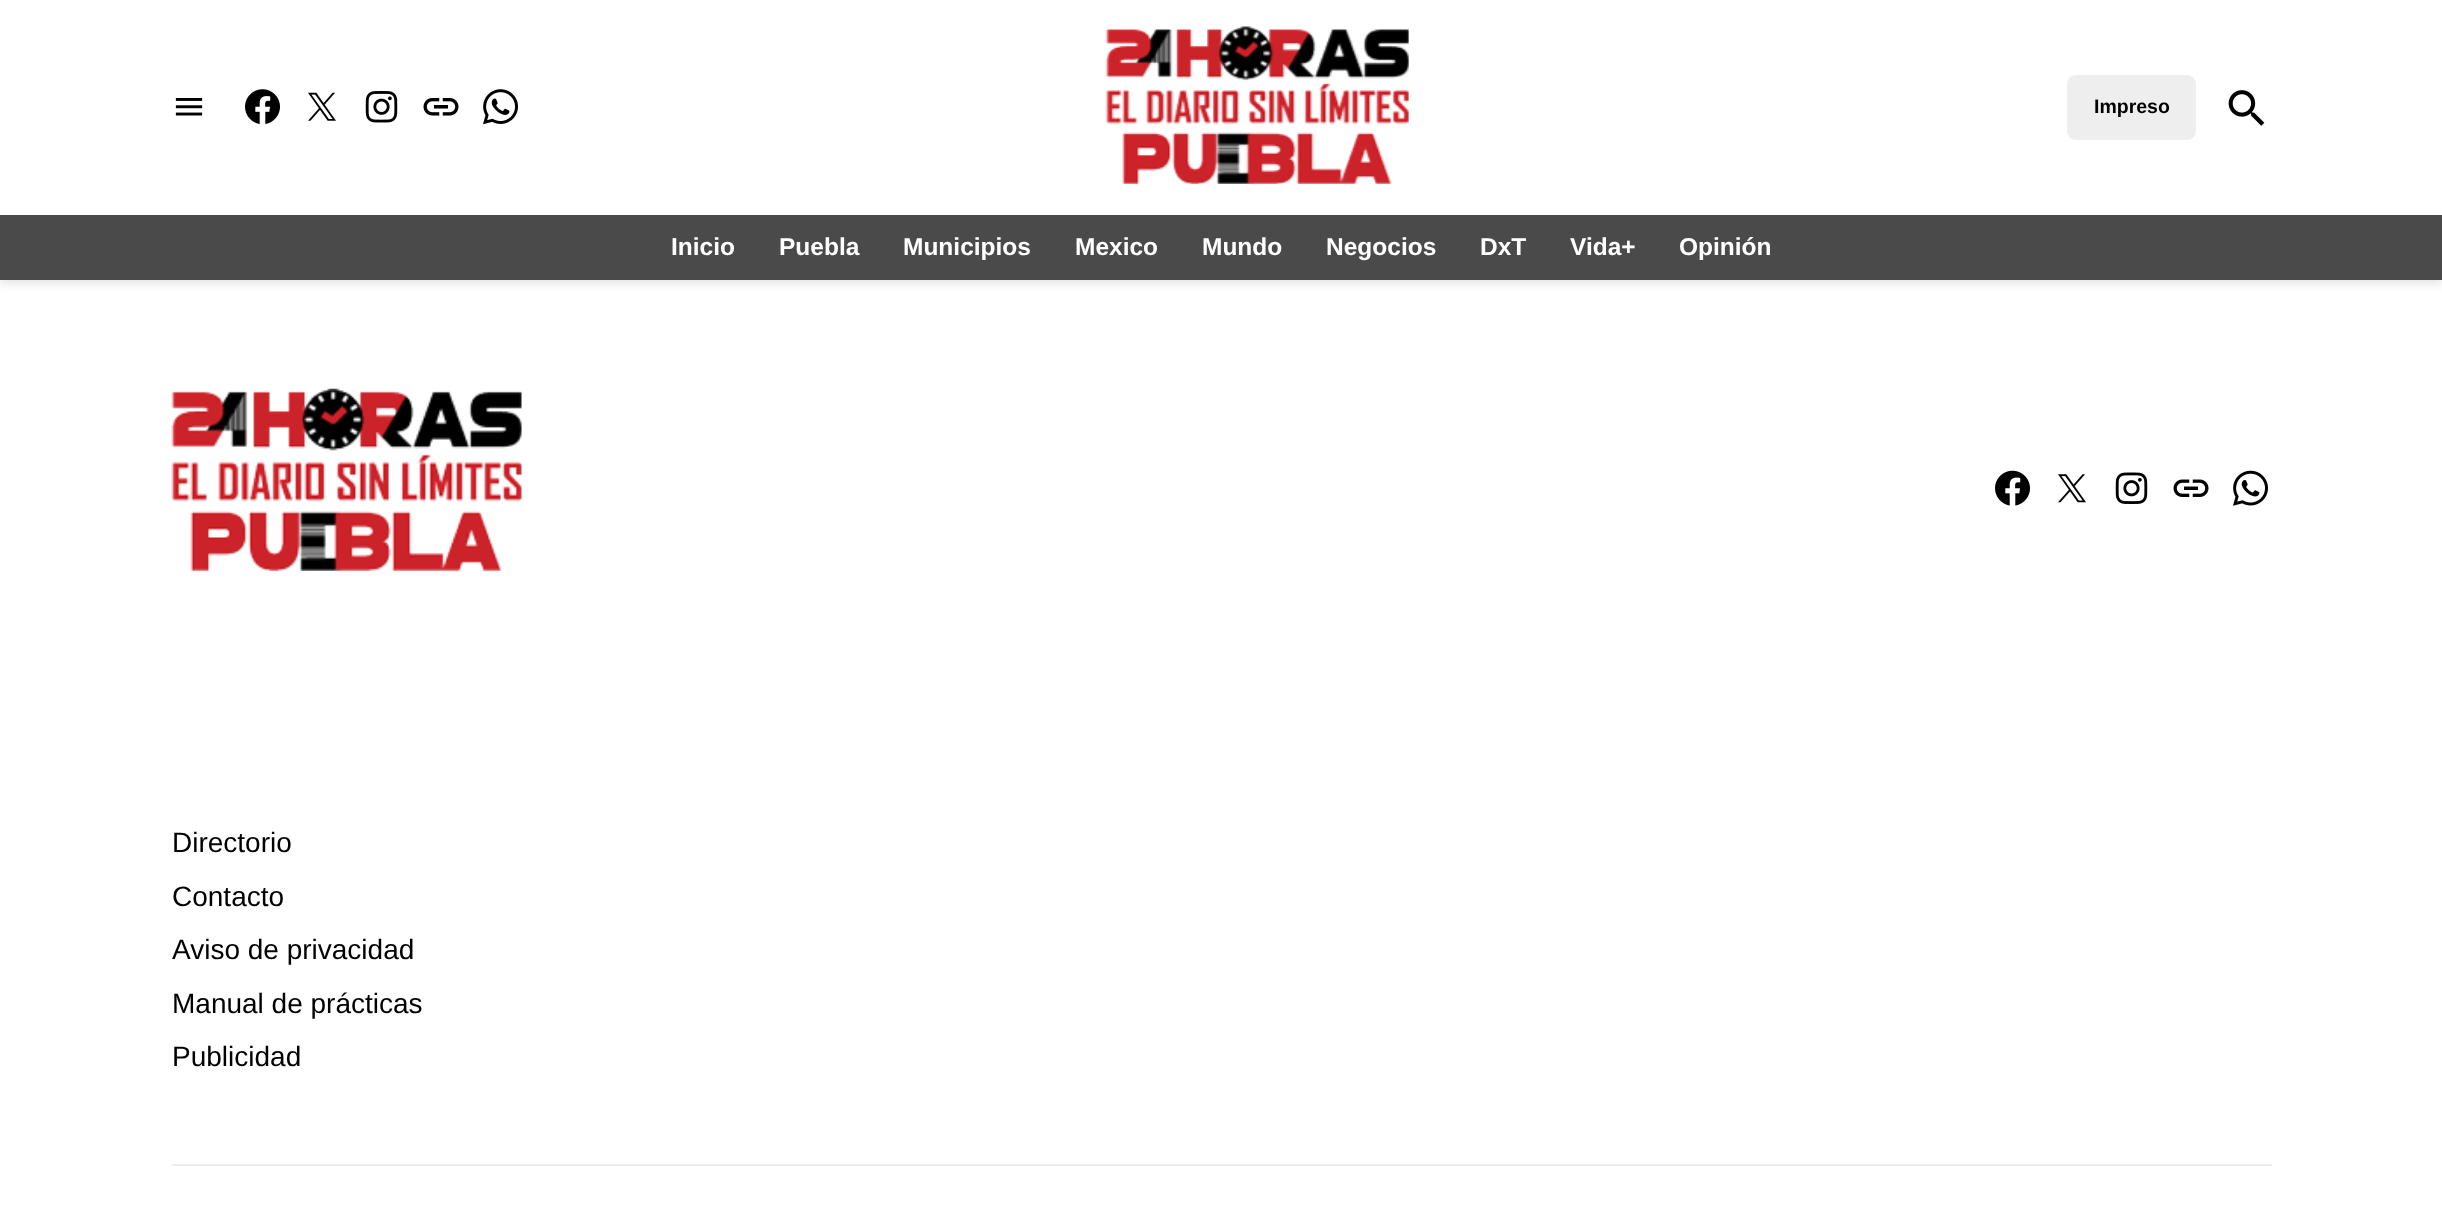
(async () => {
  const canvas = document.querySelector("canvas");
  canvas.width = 2442;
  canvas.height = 1211;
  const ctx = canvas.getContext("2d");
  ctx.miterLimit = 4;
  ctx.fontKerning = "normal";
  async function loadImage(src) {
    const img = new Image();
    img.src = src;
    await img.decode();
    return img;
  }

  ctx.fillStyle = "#ffffff";
  ctx.fillRect(0, 0, 2442, 1211);
  ctx.fillStyle = "rgba(0, 0, 0, 0.1)";
  ctx.filter = "blur(4.5px)";
  ctx.beginPath();
  ctx.rect(0, 4, 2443, 280);
  ctx.fill();
  ctx.filter = "none";
  ctx.fillStyle = "#ffffff";
  ctx.fillRect(0, 0, 2442, 215);
  ctx.drawImage(await loadImage("img/1.png"), 175, 98, 28, 18);
  ctx.drawImage(await loadImage("img/2.png"), 245, 89, 35, 35);
  ctx.drawImage(await loadImage("img/3.png"), 308, 92, 28, 29);
  ctx.drawImage(await loadImage("img/4.png"), 365, 91, 33, 32);
  ctx.drawImage(await loadImage("img/5.png"), 423, 98, 36, 18);
  ctx.drawImage(await loadImage("img/6.png"), 483, 89, 35, 36);
  ctx.drawImage(await loadImage("img/7.png"), 1105, 26, 304, 158);
  ctx.fillStyle = "#eeeeee";
  ctx.beginPath();
  ctx.roundRect(2067, 75, 129, 65, 9);
  ctx.fill();
  ctx.drawImage(await loadImage("img/8.png"), 2228, 90, 37, 36);
  ctx.fillStyle = "#4a4a4a";
  ctx.fillRect(0, 215, 2442, 65);
  ctx.drawImage(await loadImage("img/9.png"), 171, 388, 351, 183);
  ctx.drawImage(await loadImage("img/10.png"), 1995, 470, 35, 36);
  ctx.drawImage(await loadImage("img/11.png"), 2058, 474, 28, 29);
  ctx.drawImage(await loadImage("img/12.png"), 2115, 472, 33, 32);
  ctx.drawImage(await loadImage("img/13.png"), 2173, 479, 36, 18);
  ctx.drawImage(await loadImage("img/14.png"), 2233, 470, 35, 36);
  ctx.fillStyle = "#ebebeb";
  ctx.fillRect(172, 1164, 2100, 2);
  ctx.font = "bold 19.5px Liberation Sans";
  ctx.fillStyle = "#000000";
  ctx.fillText("Impreso", 2094, 113);
  ctx.font = "bold 24.5px Liberation Sans";
  ctx.fillStyle = "#ffffff";
  for (const [text, x, y] of [
    ["Inicio", 671, 255],
    ["Puebla", 779, 255],
    ["Municipios", 903, 255],
    ["Mexico", 1075, 255],
    ["Mundo", 1202, 255],
    ["Negocios", 1326, 255],
    ["DxT", 1480, 255],
    ["Vida+", 1570, 255],
    ["Opinión", 1679, 255],
  ]) {
    ctx.fillText(text, x, y);
  }
  ctx.font = "28px Liberation Sans";
  ctx.fillStyle = "#000000";
  for (const [text, x, y] of [
    ["Directorio", 172, 852],
    ["Contacto", 172, 906],
    ["Aviso de privacidad", 172, 959],
    ["Manual de prácticas", 172, 1013],
    ["Publicidad", 172, 1066],
  ]) {
    ctx.fillText(text, x, y);
  }
})();
